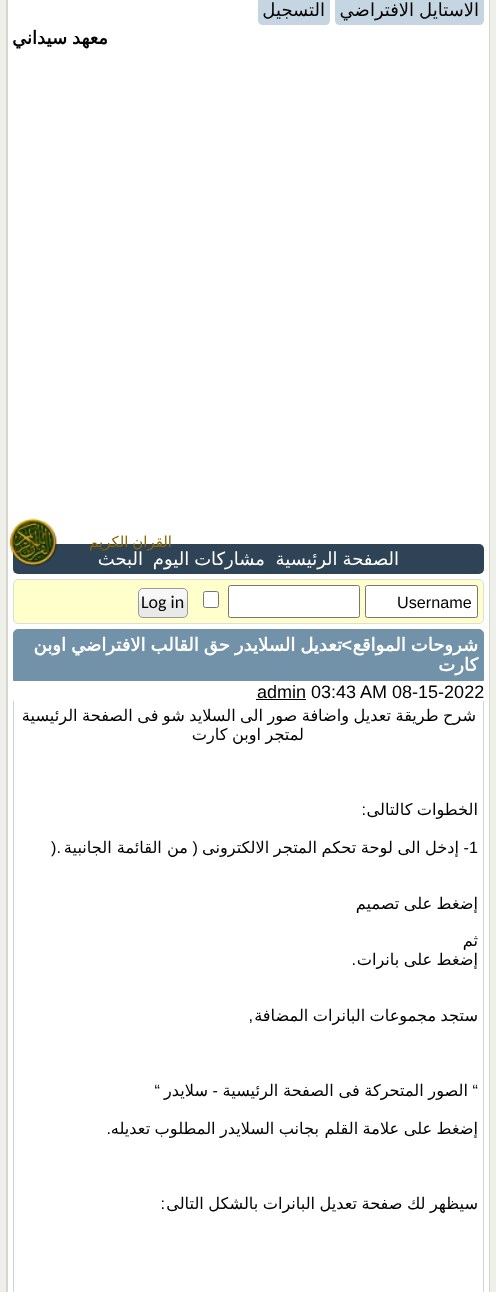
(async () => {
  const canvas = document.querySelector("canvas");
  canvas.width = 496;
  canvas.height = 1292;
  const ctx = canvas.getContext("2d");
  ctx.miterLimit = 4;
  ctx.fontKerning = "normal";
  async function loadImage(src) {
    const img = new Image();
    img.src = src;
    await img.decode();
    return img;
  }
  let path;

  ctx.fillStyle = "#efefe9";
  ctx.fillRect(0, 0, 496, 1292);
  ctx.fillStyle = "#ffffff";
  ctx.fillRect(8, 0, 481, 1292);
  ctx.fillStyle = "#d6d6cf";
  path = new Path2D("M6 0H490V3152C490 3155 488 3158 485 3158H11C8 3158 6 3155 6 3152ZM8 0H489V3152C489 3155 487 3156 485 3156H11C9 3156 8 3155 8 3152Z");
  ctx.fill(path, "evenodd");
  ctx.fillStyle = "#c5d6e2";
  path = new Path2D("M335-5H484V20C484 23 482 25 479 25H340C337 25 335 23 335 20Z");
  ctx.fill(path);
  path = new Path2D("M258-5H330V20C330 23 328 25 325 25H263C260 25 258 23 258 20Z");
  ctx.fill(path);
  ctx.fillStyle = "#2e4355";
  ctx.beginPath();
  ctx.roundRect(13, 544, 471, 30, 5);
  ctx.fill();
  ctx.drawImage(await loadImage("img/1.png"), 9, 518, 49, 49);
  ctx.fillStyle = "#ffffcc";
  ctx.beginPath();
  ctx.roundRect(13.5, 579.5, 470, 44, 4.5);
  ctx.fill();
  ctx.strokeStyle = "#dddddd";
  ctx.stroke();
  ctx.fillStyle = "#ffffff";
  ctx.beginPath();
  ctx.roundRect(365.5, 585.5, 112, 32, 2);
  ctx.fill();
  ctx.strokeStyle = "#767676";
  ctx.stroke();
  ctx.beginPath();
  ctx.roundRect(228.5, 585.5, 131, 32, 2);
  ctx.fill();
  ctx.stroke();
  ctx.beginPath();
  ctx.roundRect(203.5, 591.5, 15, 16, 2);
  ctx.fill();
  ctx.stroke();
  ctx.fillStyle = "#e9e9e9";
  ctx.beginPath();
  ctx.roundRect(138, 588, 50, 30, 5);
  ctx.fill();
  ctx.drawImage(await loadImage("img/2.png"), 137, 588, 50, 16);
  ctx.beginPath();
  ctx.roundRect(138.5, 588.5, 49, 29, 4.5);
  ctx.strokeStyle = "#999999";
  ctx.stroke();
  ctx.fillStyle = "#7192a8";
  ctx.beginPath();
  ctx.roundRect(13.5, 629.5, 470, 51, [4.5, 4.5, 0, 0]);
  ctx.fill();
  ctx.strokeStyle = "#7192a8";
  ctx.stroke();
  for (const [x, y, w, h, color] of [
    [256, 699, 50, 1, "#000000"],
    [483, 701, 1, 591, "#c5d6e2"],
    [13, 701, 1, 591, "#c5d6e2"],
  ]) {
    ctx.fillStyle = color;
    ctx.fillRect(x, y, w, h);
  }
  ctx.wordSpacing = "-0.75px";
  ctx.direction = "rtl";
  ctx.font = "18px DejaVu Sans";
  ctx.fillStyle = "#000000";
  ctx.fillText("الاستايل الافتراضي", 479, 16);
  ctx.wordSpacing = "0px";
  ctx.fillText("التسجيل", 325, 16);
  ctx.wordSpacing = "-0.75px";
  ctx.font = "bold 18px DejaVu Sans";
  ctx.fillText("معهد سيداني", 108, 44);
  ctx.wordSpacing = "-1px";
  ctx.font = "15px DejaVu Sans";
  ctx.fillStyle = "#8d6700";
  ctx.fillText("القران الكريم", 172, 547);
  ctx.wordSpacing = "-0.75px";
  ctx.font = "18px DejaVu Sans";
  ctx.fillStyle = "#ffffff";
  ctx.fillText("الصفحة الرئيسية", 399, 565);
  ctx.fillText("مشاركات اليوم", 265, 565);
  ctx.wordSpacing = "0px";
  ctx.fillText("البحث", 143, 565);
  ctx.direction = "ltr";
  ctx.font = "16.2px Liberation Sans";
  ctx.fillStyle = "#000000";
  ctx.fillText("Username", 397, 608);
  ctx.font = "18px Carlito";
  ctx.fillText("Log in", 141, 608);
  ctx.wordSpacing = "-0.75px";
  ctx.direction = "rtl";
  ctx.font = "bold 18px DejaVu Sans";
  ctx.fillStyle = "#ffffff";
  ctx.fillText("شروحات المواقع", 478, 651);
  ctx.fillText("تعديل السلايدر حق القالب الافتراضي اوبن", 342, 651);
  ctx.wordSpacing = "0px";
  ctx.font = "bold 18px Liberation Sans";
  ctx.fillText(">", 352, 651);
  ctx.font = "bold 18px DejaVu Sans";
  ctx.fillText("كارت", 478, 671);
  ctx.direction = "ltr";
  ctx.font = "18px Liberation Sans";
  ctx.fillStyle = "#000000";
  ctx.fillText("admin 03:43 AM 08-15-2022", 257, 698);
  ctx.wordSpacing = "-0.75px";
  ctx.direction = "rtl";
  ctx.font = "16.2px DejaVu Sans";
  for (const [text, x, y] of [
    ["شرح طريقة تعديل واضافة صور الى السلايد شو فى الصفحة الرئيسية", 476, 721],
    ["لمتجر اوبن كارت", 304, 740],
    ["الخطوات كالتالى", 478, 815],
  ]) {
    ctx.fillText(text, x, y);
  }
  ctx.wordSpacing = "0px";
  ctx.font = "16.2px Liberation Sans";
  ctx.fillText(":", 366, 815);
  ctx.direction = "ltr";
  ctx.fillText("1", 469, 853);
  ctx.direction = "rtl";
  ctx.fillText("-", 469, 853);
  ctx.wordSpacing = "-0.5px";
  ctx.font = "16.2px DejaVu Sans";
  ctx.fillText("إدخل الى لوحة تحكم المتجر الالكترونى", 459, 853);
  ctx.wordSpacing = "0px";
  ctx.font = "16.2px Liberation Sans";
  ctx.fillText("(", 198, 853);
  ctx.font = "16.2px DejaVu Sans";
  ctx.fillText("من القائمة الجانبية", 188, 853);
  ctx.direction = "ltr";
  ctx.font = "16.2px Liberation Sans";
  ctx.fillText(").", 51, 853);
  ctx.wordSpacing = "-0.75px";
  ctx.direction = "rtl";
  ctx.font = "16.2px DejaVu Sans";
  ctx.fillText("إضغط على تصميم", 478, 909);
  ctx.wordSpacing = "0px";
  ctx.fillText("ثم", 478, 946);
  ctx.wordSpacing = "-0.75px";
  ctx.fillText("إضغط على بانرات", 478, 965);
  ctx.wordSpacing = "0px";
  ctx.font = "16.2px Liberation Sans";
  ctx.fillText(".", 356, 965);
  ctx.wordSpacing = "-0.75px";
  ctx.font = "16.2px DejaVu Sans";
  ctx.fillText("ستجد مجموعات البانرات المضافة", 478, 1021);
  ctx.wordSpacing = "0px";
  ctx.font = "16.2px Liberation Sans";
  ctx.fillText(",", 253, 1021);
  ctx.fillText("“", 478, 1096);
  ctx.wordSpacing = "-0.5px";
  ctx.font = "16.2px DejaVu Sans";
  ctx.fillText("الصور المتحركة فى الصفحة الرئيسية", 468, 1096);
  ctx.wordSpacing = "0px";
  ctx.fillText("سلايدر", 208, 1096);
  ctx.font = "16.2px Liberation Sans";
  ctx.fillText("“", 160, 1096);
  ctx.fillText("-", 218, 1096);
  ctx.wordSpacing = "-0.75px";
  ctx.font = "16.2px DejaVu Sans";
  ctx.fillText("إضغط على علامة القلم", 478, 1134);
  ctx.fillText("بجانب السلايدر المطلوب تعديله", 319, 1134);
  ctx.wordSpacing = "0px";
  ctx.font = "16.2px Liberation Sans";
  ctx.fillText(".", 111, 1134);
  ctx.wordSpacing = "-0.75px";
  ctx.font = "16.2px DejaVu Sans";
  ctx.fillText("سيظهر لك صفحة تعديل البانرات بالشكل التالى", 478, 1209);
  ctx.wordSpacing = "0px";
  ctx.font = "16.2px Liberation Sans";
  ctx.fillText(":", 165, 1209);
})();
